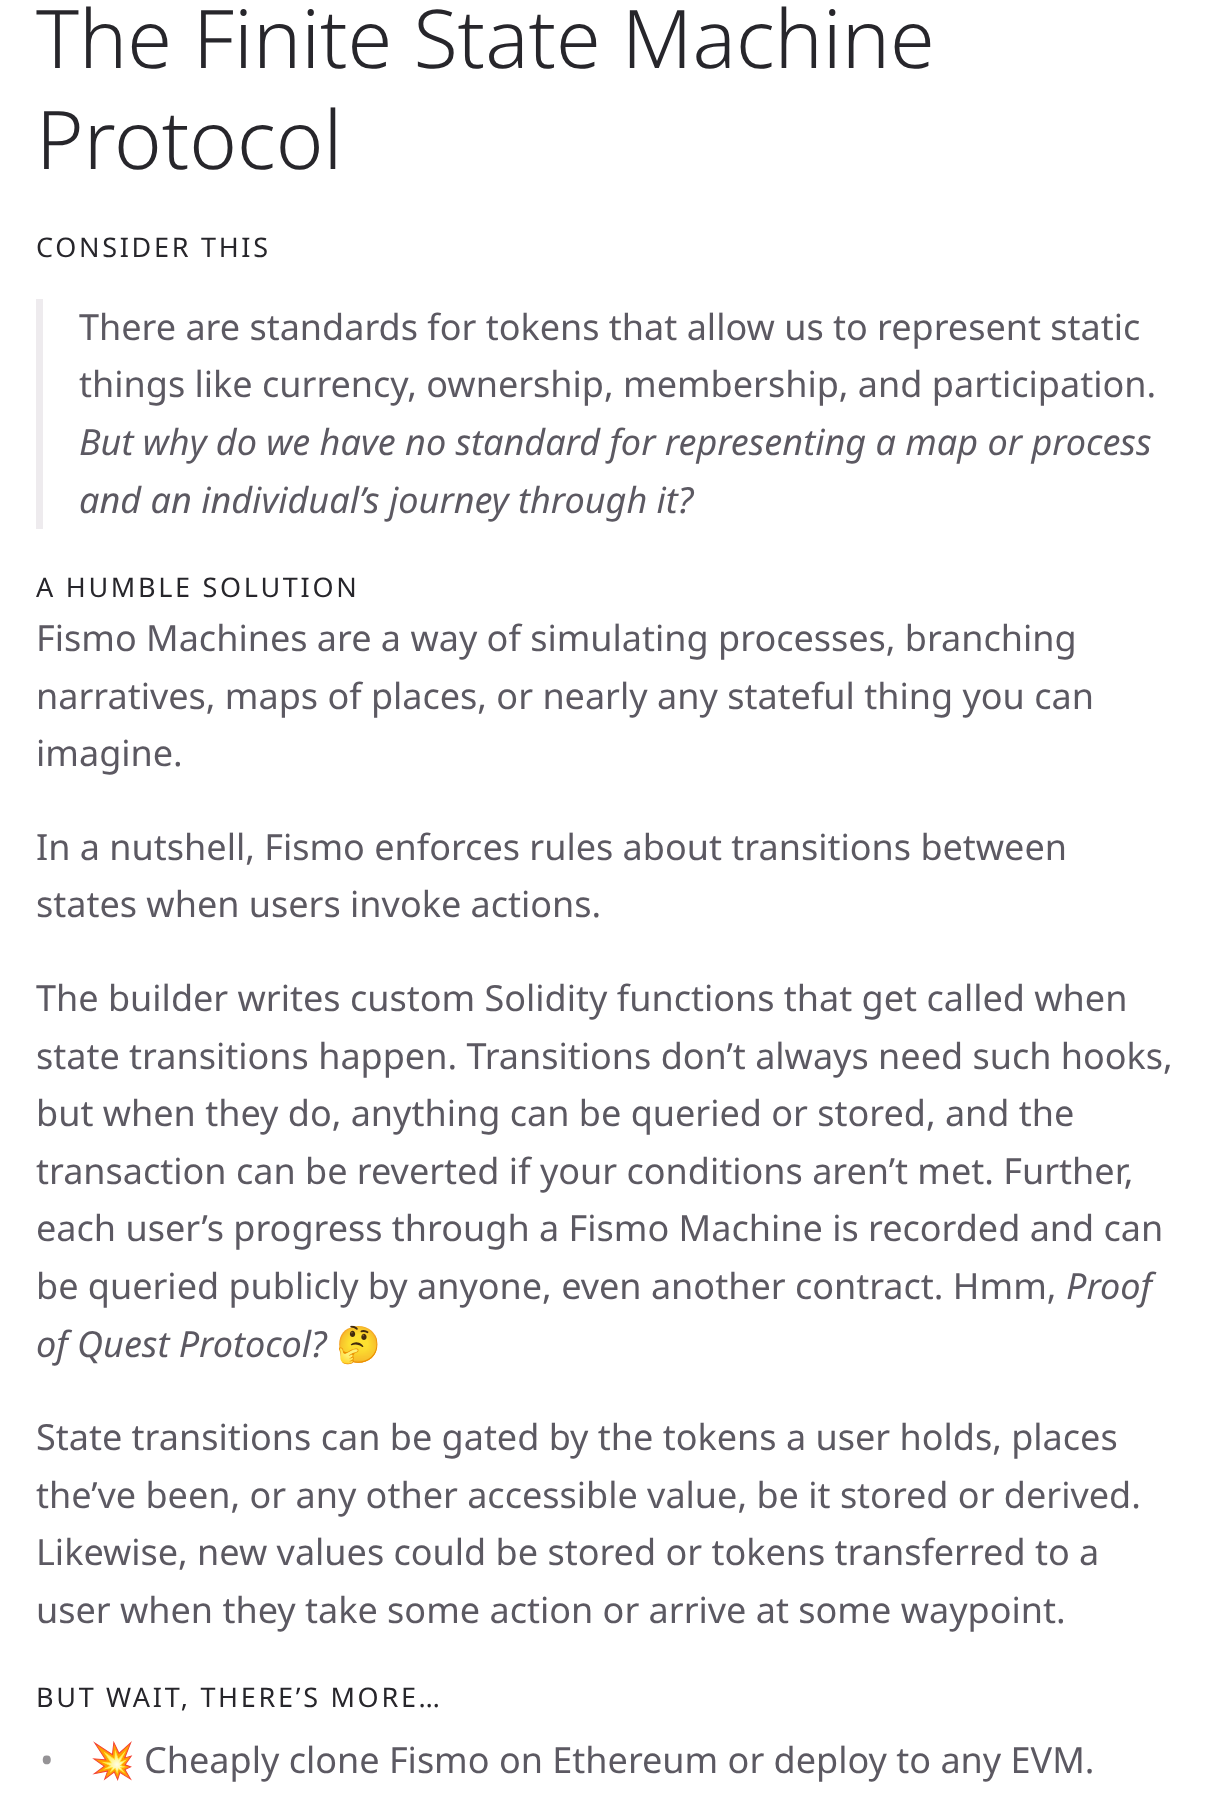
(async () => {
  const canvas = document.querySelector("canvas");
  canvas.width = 1210;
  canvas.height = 1801;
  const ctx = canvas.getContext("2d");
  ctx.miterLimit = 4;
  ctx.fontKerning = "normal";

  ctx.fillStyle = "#ffffff";
  ctx.fillRect(0, 0, 1210, 1801);
  ctx.fillStyle = "#eeebee";
  ctx.fillRect(36, 299, 7, 230);
  ctx.font = "300 81px Noto Sans";
  ctx.fillStyle = "#27262b";
  ctx.fillText("The Finite State Machine", 36, 68);
  ctx.fillText("Protocol", 36, 169);
  ctx.letterSpacing = "2.7px";
  ctx.font = "27px Noto Sans";
  ctx.fillText("CONSIDER THIS", 36, 257);
  ctx.letterSpacing = "0px";
  ctx.font = "36px Noto Sans";
  ctx.fillStyle = "#5c5962";
  ctx.fillText("There are standards for tokens that allow us to represent static", 79, 340);
  ctx.fillText("things like currency, ownership, membership, and participation.", 79, 397);
  ctx.font = "italic 36px Noto Sans";
  ctx.fillText("But why do we have no standard for representing a map or process", 79, 455);
  ctx.fillText("and an individual’s journey through it?", 79, 513);
  ctx.letterSpacing = "2.7px";
  ctx.font = "27px Noto Sans";
  ctx.fillStyle = "#27262b";
  ctx.fillText("A HUMBLE SOLUTION", 36, 597);
  ctx.letterSpacing = "0px";
  ctx.font = "36px Noto Sans";
  ctx.fillStyle = "#5c5962";
  for (const [text, x, y] of [
    ["Fismo Machines are a way of simulating processes, branching", 36, 651],
    ["narratives, maps of places, or nearly any stateful thing you can", 36, 709],
    ["imagine.", 36, 766],
    ["In a nutshell, Fismo enforces rules about transitions between", 36, 860],
    ["states when users invoke actions.", 36, 917],
    ["The builder writes custom Solidity functions that get called when", 36, 1011],
    ["state transitions happen. Transitions don’t always need such hooks,", 36, 1069],
    ["but when they do, anything can be queried or stored, and the", 36, 1126],
    ["transaction can be reverted if your conditions aren’t met. Further,", 36, 1184],
    ["each user’s progress through a Fismo Machine is recorded and can", 36, 1241],
    ["be queried publicly by anyone, even another contract. Hmm,", 36, 1299],
  ]) {
    ctx.fillText(text, x, y);
  }
  ctx.font = "italic 36px Noto Sans";
  ctx.fillText("Proof", 1066, 1299);
  ctx.fillText("of Quest Protocol?", 36, 1357);
  ctx.font = "36px Noto Color Emoji";
  ctx.fillText("🤔", 336, 1357);
  ctx.font = "36px Noto Sans";
  for (const [text, x, y] of [
    ["State transitions can be gated by the tokens a user holds, places", 36, 1450],
    ["the’ve been, or any other accessible value, be it stored or derived.", 36, 1508],
    ["Likewise, new values could be stored or tokens transferred to a", 36, 1565],
    ["user when they take some action or arrive at some waypoint.", 36, 1623],
  ]) {
    ctx.fillText(text, x, y);
  }
  ctx.letterSpacing = "2.7px";
  ctx.font = "27px Noto Sans";
  ctx.fillStyle = "#27262b";
  ctx.fillText("BUT WAIT, THERE’S MORE…", 36, 1707);
  ctx.letterSpacing = "0px";
  ctx.font = "36px Noto Sans";
  ctx.fillStyle = "#959396";
  ctx.fillText("•", 40, 1773);
  ctx.font = "36px Noto Color Emoji";
  ctx.fillStyle = "#5c5962";
  ctx.fillText("💥", 90, 1773);
  ctx.font = "36px Noto Sans";
  ctx.fillText("Cheaply clone Fismo on Ethereum or deploy to any EVM.", 144, 1773);
})();
